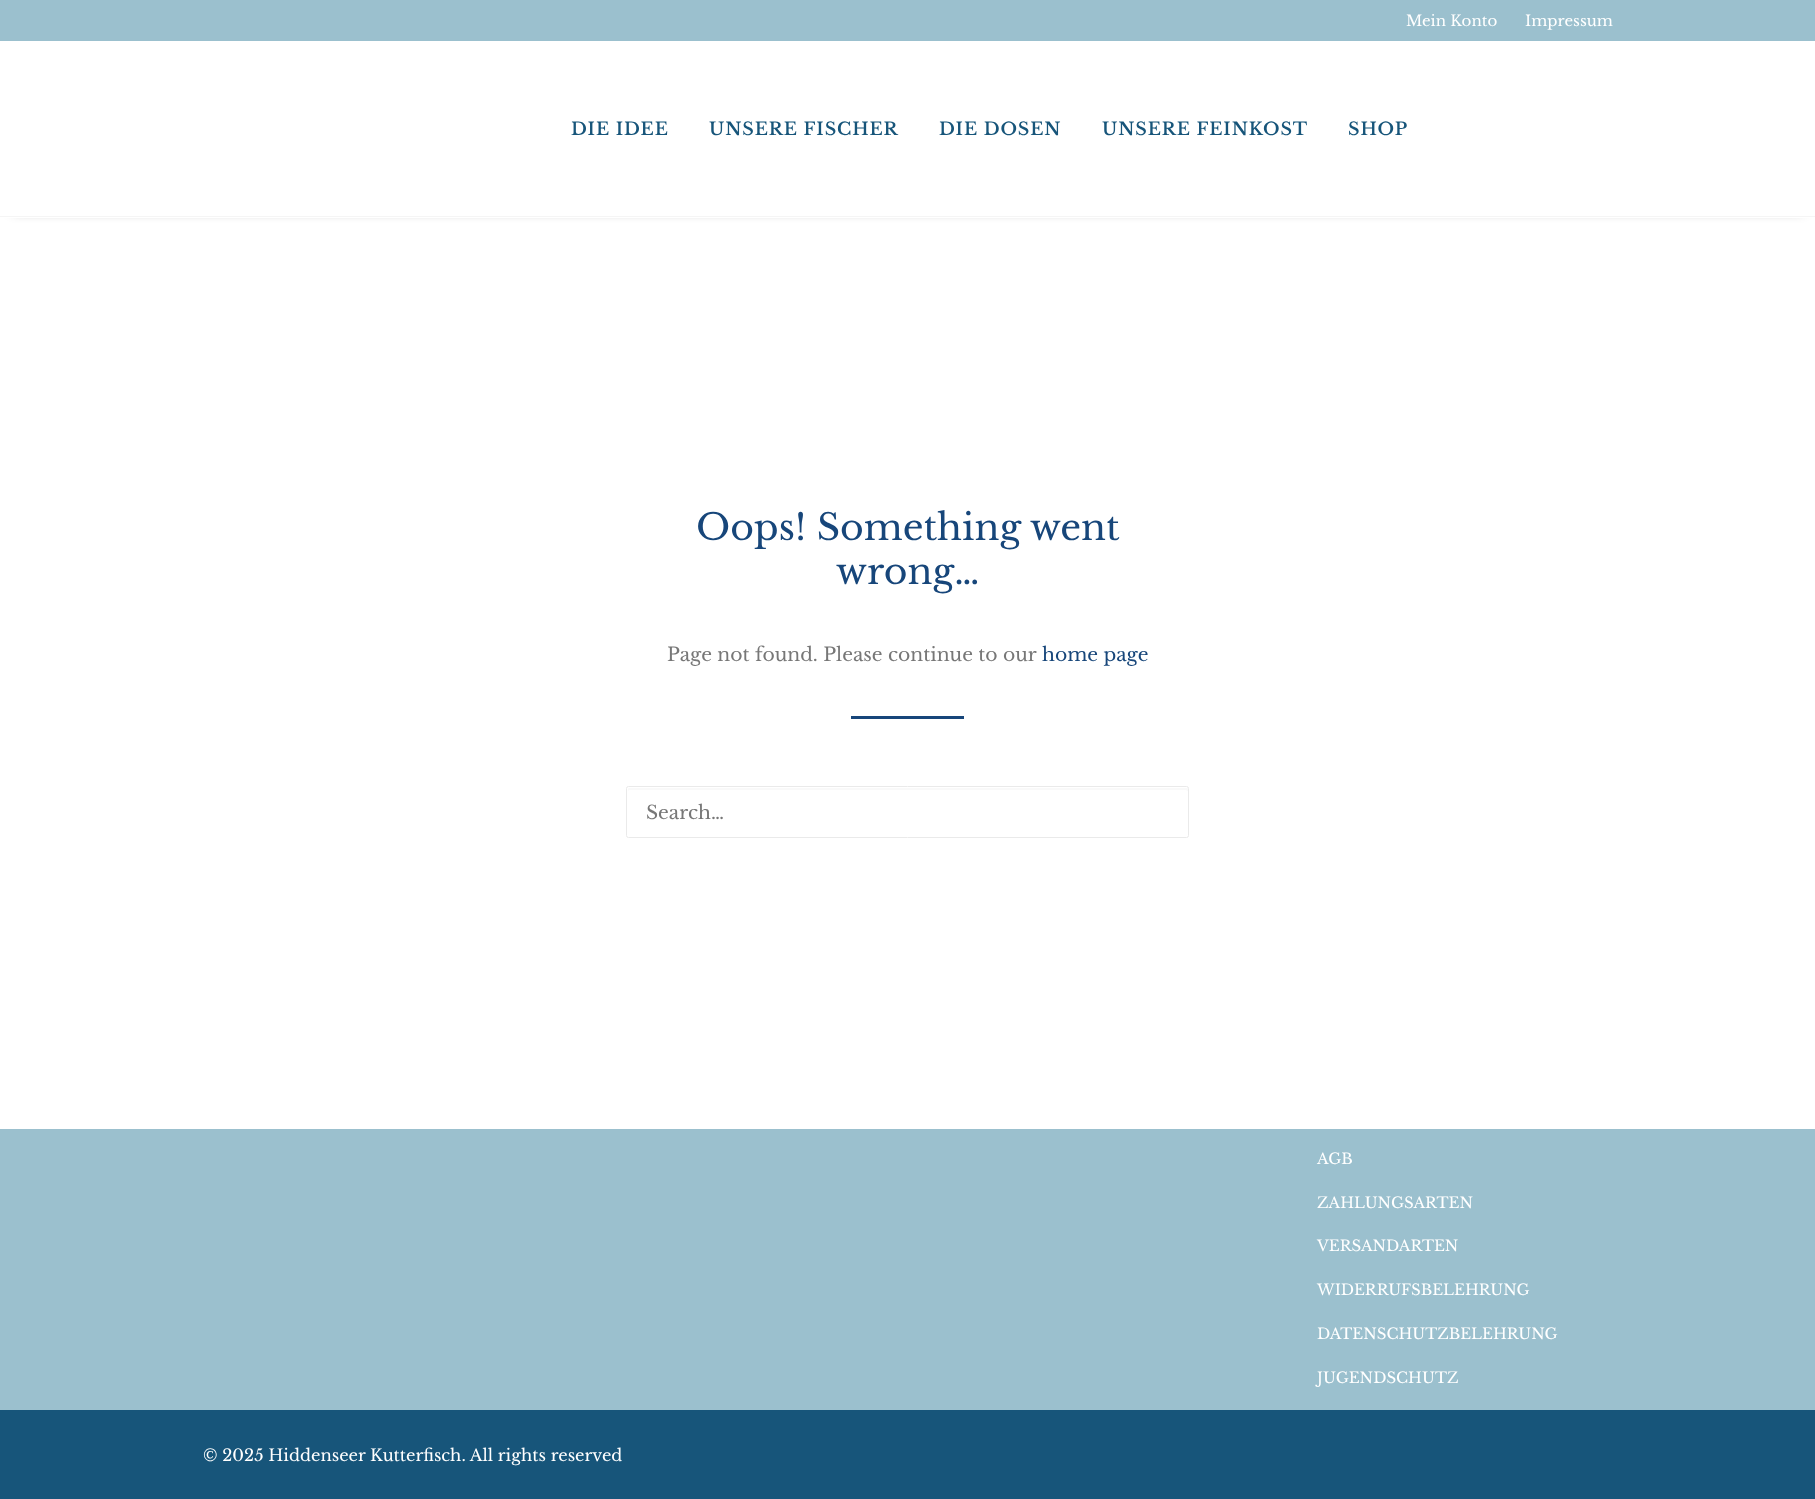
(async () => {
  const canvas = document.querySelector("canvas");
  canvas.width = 1815;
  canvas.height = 1499;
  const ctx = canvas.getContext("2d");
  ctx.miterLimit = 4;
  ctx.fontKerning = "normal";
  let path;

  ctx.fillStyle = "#ffffff";
  ctx.fillRect(0, 0, 1815, 1499);
  ctx.fillStyle = "rgba(0, 0, 0, 0.6)";
  ctx.filter = "blur(6px)";
  ctx.beginPath();
  ctx.rect(13, 59, 1790, 151);
  ctx.fill();
  ctx.filter = "none";
  for (const [x, y, w, h, color] of [
    [0, 0, 1815, 41, "#9bc0ce"],
    [0, 46, 1815, 172, "#ffffff"],
    [0, 216, 1815, 1, "#f5f5f5"],
    [851, 716, 113, 3, "#17467a"],
  ]) {
    ctx.fillStyle = color;
    ctx.fillRect(x, y, w, h);
  }
  ctx.fillStyle = "#f9f9f9";
  path = new Path2D("M629 790H1186L1188 791V788H1187H629C628 788 628 790 628 791Z");
  ctx.fill(path);
  ctx.beginPath();
  ctx.roundRect(626.5, 786.5, 562, 51, 2);
  ctx.strokeStyle = "#eaeaea";
  ctx.stroke();
  ctx.fillStyle = "#9bc0ce";
  ctx.fillRect(0, 1129, 1815, 281);
  ctx.fillStyle = "#17557a";
  ctx.fillRect(0, 1410, 1815, 89);
  ctx.font = "15px Libre Baskerville";
  ctx.fillStyle = "#ffffff";
  ctx.fillText("Mein Konto", 1406, 26);
  ctx.fillText("Impressum", 1525, 26);
  ctx.letterSpacing = "0.9px";
  ctx.font = "600 17.5px Libre Baskerville";
  ctx.fillStyle = "#17557a";
  for (const [text, x, y] of [
    ["DIE IDEE", 571, 135],
    ["UNSERE FISCHER", 709, 135],
    ["DIE DOSEN", 939, 135],
    ["UNSERE FEINKOST", 1102, 135],
    ["SHOP", 1348, 135],
  ]) {
    ctx.fillText(text, x, y);
  }
  ctx.letterSpacing = "0px";
  ctx.font = "36.25px Libre Baskerville";
  ctx.fillStyle = "#17467a";
  ctx.fillText("Oops! Something went", 696, 540);
  ctx.fillText("wrong…", 836, 584);
  ctx.font = "18.75px Libre Baskerville";
  ctx.fillStyle = "#777777";
  ctx.fillText("Page not found. Please continue to our", 667, 661);
  ctx.fillStyle = "#17467a";
  ctx.fillText("home page", 1042, 661);
  ctx.fillStyle = "#777777";
  ctx.fillText("Search…", 646, 819);
  ctx.font = "15px Libre Baskerville";
  ctx.fillStyle = "#ffffff";
  for (const [text, x, y] of [
    ["AGB", 1317, 1164],
    ["ZAHLUNGSARTEN", 1317, 1208],
    ["VERSANDARTEN", 1317, 1251],
    ["WIDERRUFSBELEHRUNG", 1317, 1295],
    ["DATENSCHUTZBELEHRUNG", 1317, 1339],
    ["JUGENDSCHUTZ", 1317, 1383],
  ]) {
    ctx.fillText(text, x, y);
  }
  ctx.font = "16.4px Libre Baskerville";
  ctx.fillText("© 2025 Hiddenseer Kutterfisch. All rights reserved", 203, 1461);
})();
